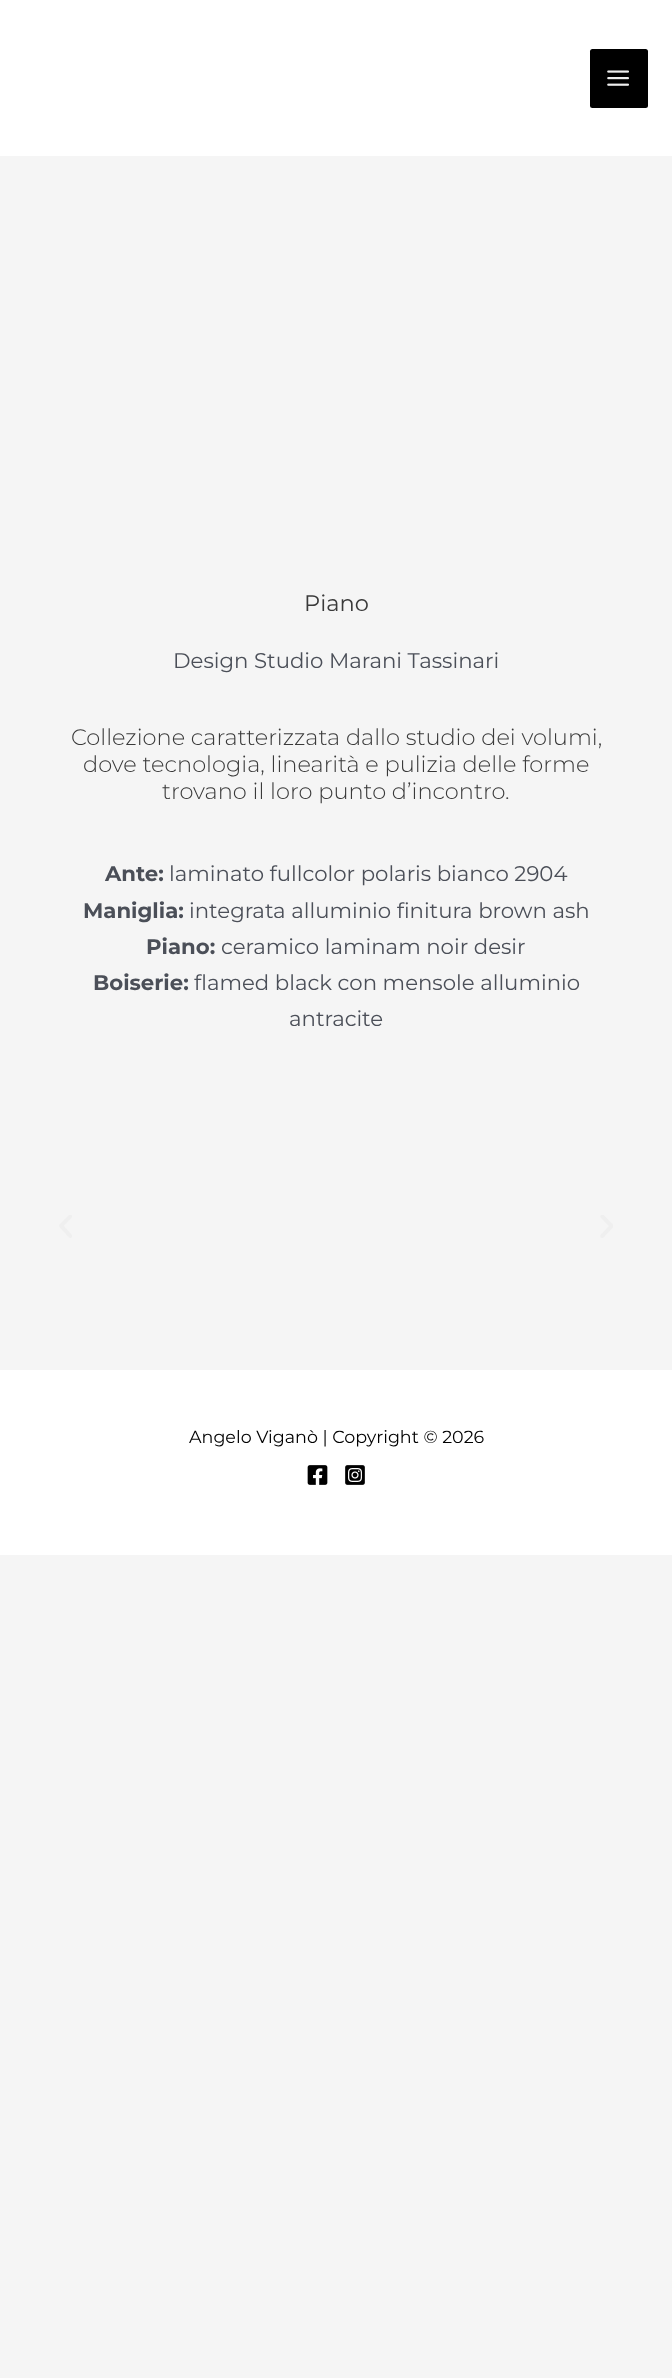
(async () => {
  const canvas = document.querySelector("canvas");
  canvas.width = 672;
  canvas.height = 2378;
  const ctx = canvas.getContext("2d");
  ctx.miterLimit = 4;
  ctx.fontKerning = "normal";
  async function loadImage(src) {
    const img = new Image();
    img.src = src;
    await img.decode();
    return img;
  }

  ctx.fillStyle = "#f5f5f5";
  ctx.fillRect(0, 0, 672, 2378);
  ctx.fillStyle = "#ffffff";
  ctx.fillRect(0, 0, 672, 156);
  ctx.fillStyle = "#000000";
  ctx.beginPath();
  ctx.roundRect(590, 49, 58, 59, 2.5);
  ctx.fill();
  ctx.drawImage(await loadImage("img/1.png"), 607, 70, 22, 16);
  ctx.drawImage(await loadImage("img/2.png"), 59, 1215, 13, 23);
  ctx.drawImage(await loadImage("img/3.png"), 600, 1215, 13, 23);
  ctx.fillStyle = "#ffffff";
  ctx.fillRect(0, 1370, 672, 185);
  ctx.drawImage(await loadImage("img/4.png"), 307, 1465, 21, 20);
  ctx.drawImage(await loadImage("img/5.png"), 345, 1465, 20, 20);
  ctx.font = "22.5px Montserrat";
  ctx.fillStyle = "#3a3a3a";
  ctx.fillText("Piano", 304, 611);
  ctx.font = "21.25px Montserrat";
  ctx.fillStyle = "#4b4f58";
  ctx.fillText("Design Studio Marani Tassinari", 173, 668);
  ctx.font = "300 22.5px Montserrat";
  ctx.fillStyle = "#3a3a3a";
  for (const [text, x, y] of [
    ["Collezione caratterizzata dallo studio dei volumi,", 71, 745],
    ["dove tecnologia, linearità e pulizia delle forme", 83, 772],
    ["trovano il loro punto d’incontro.", 162, 799],
  ]) {
    ctx.fillText(text, x, y);
  }
  ctx.font = "bold 21.25px Montserrat";
  ctx.fillStyle = "#4b4f58";
  ctx.fillText("Ante:", 105, 881);
  ctx.font = "21.25px Montserrat";
  ctx.fillText("laminato fullcolor polaris bianco 2904", 169, 881);
  ctx.font = "bold 21.25px Montserrat";
  ctx.fillText("Maniglia:", 83, 918);
  ctx.font = "21.25px Montserrat";
  ctx.fillText("integrata alluminio finitura brown ash", 189, 918);
  ctx.font = "bold 21.25px Montserrat";
  ctx.fillText("Piano:", 146, 954);
  ctx.font = "21.25px Montserrat";
  ctx.fillText("ceramico laminam noir desir", 221, 954);
  ctx.font = "bold 21.25px Montserrat";
  ctx.fillText("Boiserie:", 93, 990);
  ctx.font = "21.25px Montserrat";
  ctx.fillText("flamed black con mensole alluminio", 194, 990);
  ctx.fillText("antracite", 289, 1026);
  ctx.font = "17.5px Montserrat";
  ctx.fillStyle = "#000000";
  ctx.fillText("Angelo Viganò | Copyright © 2026", 189, 1443);
})();
